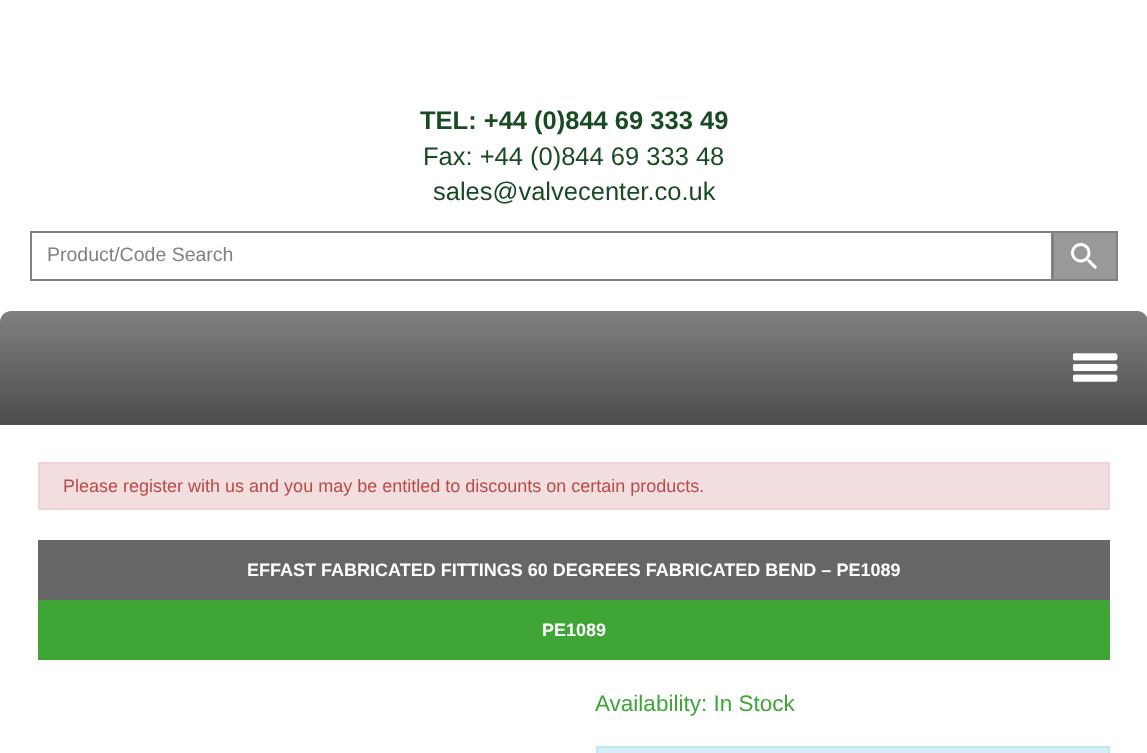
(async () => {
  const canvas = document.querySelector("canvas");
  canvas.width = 1147;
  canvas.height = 753;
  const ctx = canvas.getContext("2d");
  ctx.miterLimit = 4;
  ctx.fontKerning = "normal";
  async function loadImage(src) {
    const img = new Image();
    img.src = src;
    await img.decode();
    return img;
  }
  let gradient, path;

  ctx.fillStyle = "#ffffff";
  ctx.fillRect(0, 0, 1147, 753);
  ctx.fillStyle = "#999999";
  ctx.beginPath();
  ctx.rect(1053, 232, 64, 48);
  ctx.fill();
  ctx.strokeStyle = "#808080";
  ctx.lineWidth = 2;
  ctx.stroke();
  ctx.strokeRect(31, 232, 1021, 48);
  ctx.drawImage(await loadImage("img/1.png"), 1071, 243, 26, 26);
  gradient = ctx.createLinearGradient(574, 310, 574, 425);
  gradient.addColorStop(0, "#808080");
  gradient.addColorStop(1, "#4d4d4d");
  ctx.fillStyle = gradient;
  path = new Path2D("M11 311H1137C1143 311 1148 316 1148 322V425H0V322C0 316 5 311 11 311Z");
  ctx.fill(path);
  ctx.drawImage(await loadImage("img/2.png"), 1073, 353, 45, 29);
  ctx.fillStyle = "#f2dede";
  ctx.beginPath();
  ctx.rect(39, 463, 1070, 46);
  ctx.fill();
  ctx.strokeStyle = "#eed3d7";
  ctx.stroke();
  ctx.fillStyle = "#666666";
  ctx.fillRect(38, 540, 1072, 60);
  ctx.fillStyle = "#3fa535";
  ctx.fillRect(38, 600, 1072, 60);
  ctx.fillStyle = "#d9edf7";
  ctx.beginPath();
  ctx.rect(597, 747, 512, 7);
  ctx.fill();
  ctx.strokeStyle = "#bce8f1";
  ctx.stroke();
  ctx.font = "bold 25.5px Liberation Sans";
  ctx.fillStyle = "#194b23";
  ctx.fillText("TEL: +44 (0)844 69 333 49", 420, 129);
  ctx.font = "25.5px Liberation Sans";
  ctx.fillText("Fax: +44 (0)844 69 333 48", 423, 165);
  ctx.fillText("sales@valvecenter.co.uk", 433, 200);
  ctx.font = "19.5px Liberation Sans";
  ctx.fillStyle = "#808080";
  ctx.fillText("Product/Code Search", 47, 261);
  ctx.font = "18px Liberation Sans";
  ctx.fillStyle = "#b94a48";
  ctx.fillText("Please register with us and you may be entitled to discounts on certain products.", 63, 492);
  ctx.font = "bold 18px Liberation Sans";
  ctx.fillStyle = "#ffffff";
  ctx.fillText("EFFAST FABRICATED FITTINGS 60 DEGREES FABRICATED BEND – PE1089", 247, 576);
  ctx.fillText("PE1089", 542, 636);
  ctx.font = "22.5px Liberation Sans";
  ctx.fillStyle = "#3fa535";
  ctx.fillText("Availability: In Stock", 595, 711);
})();
